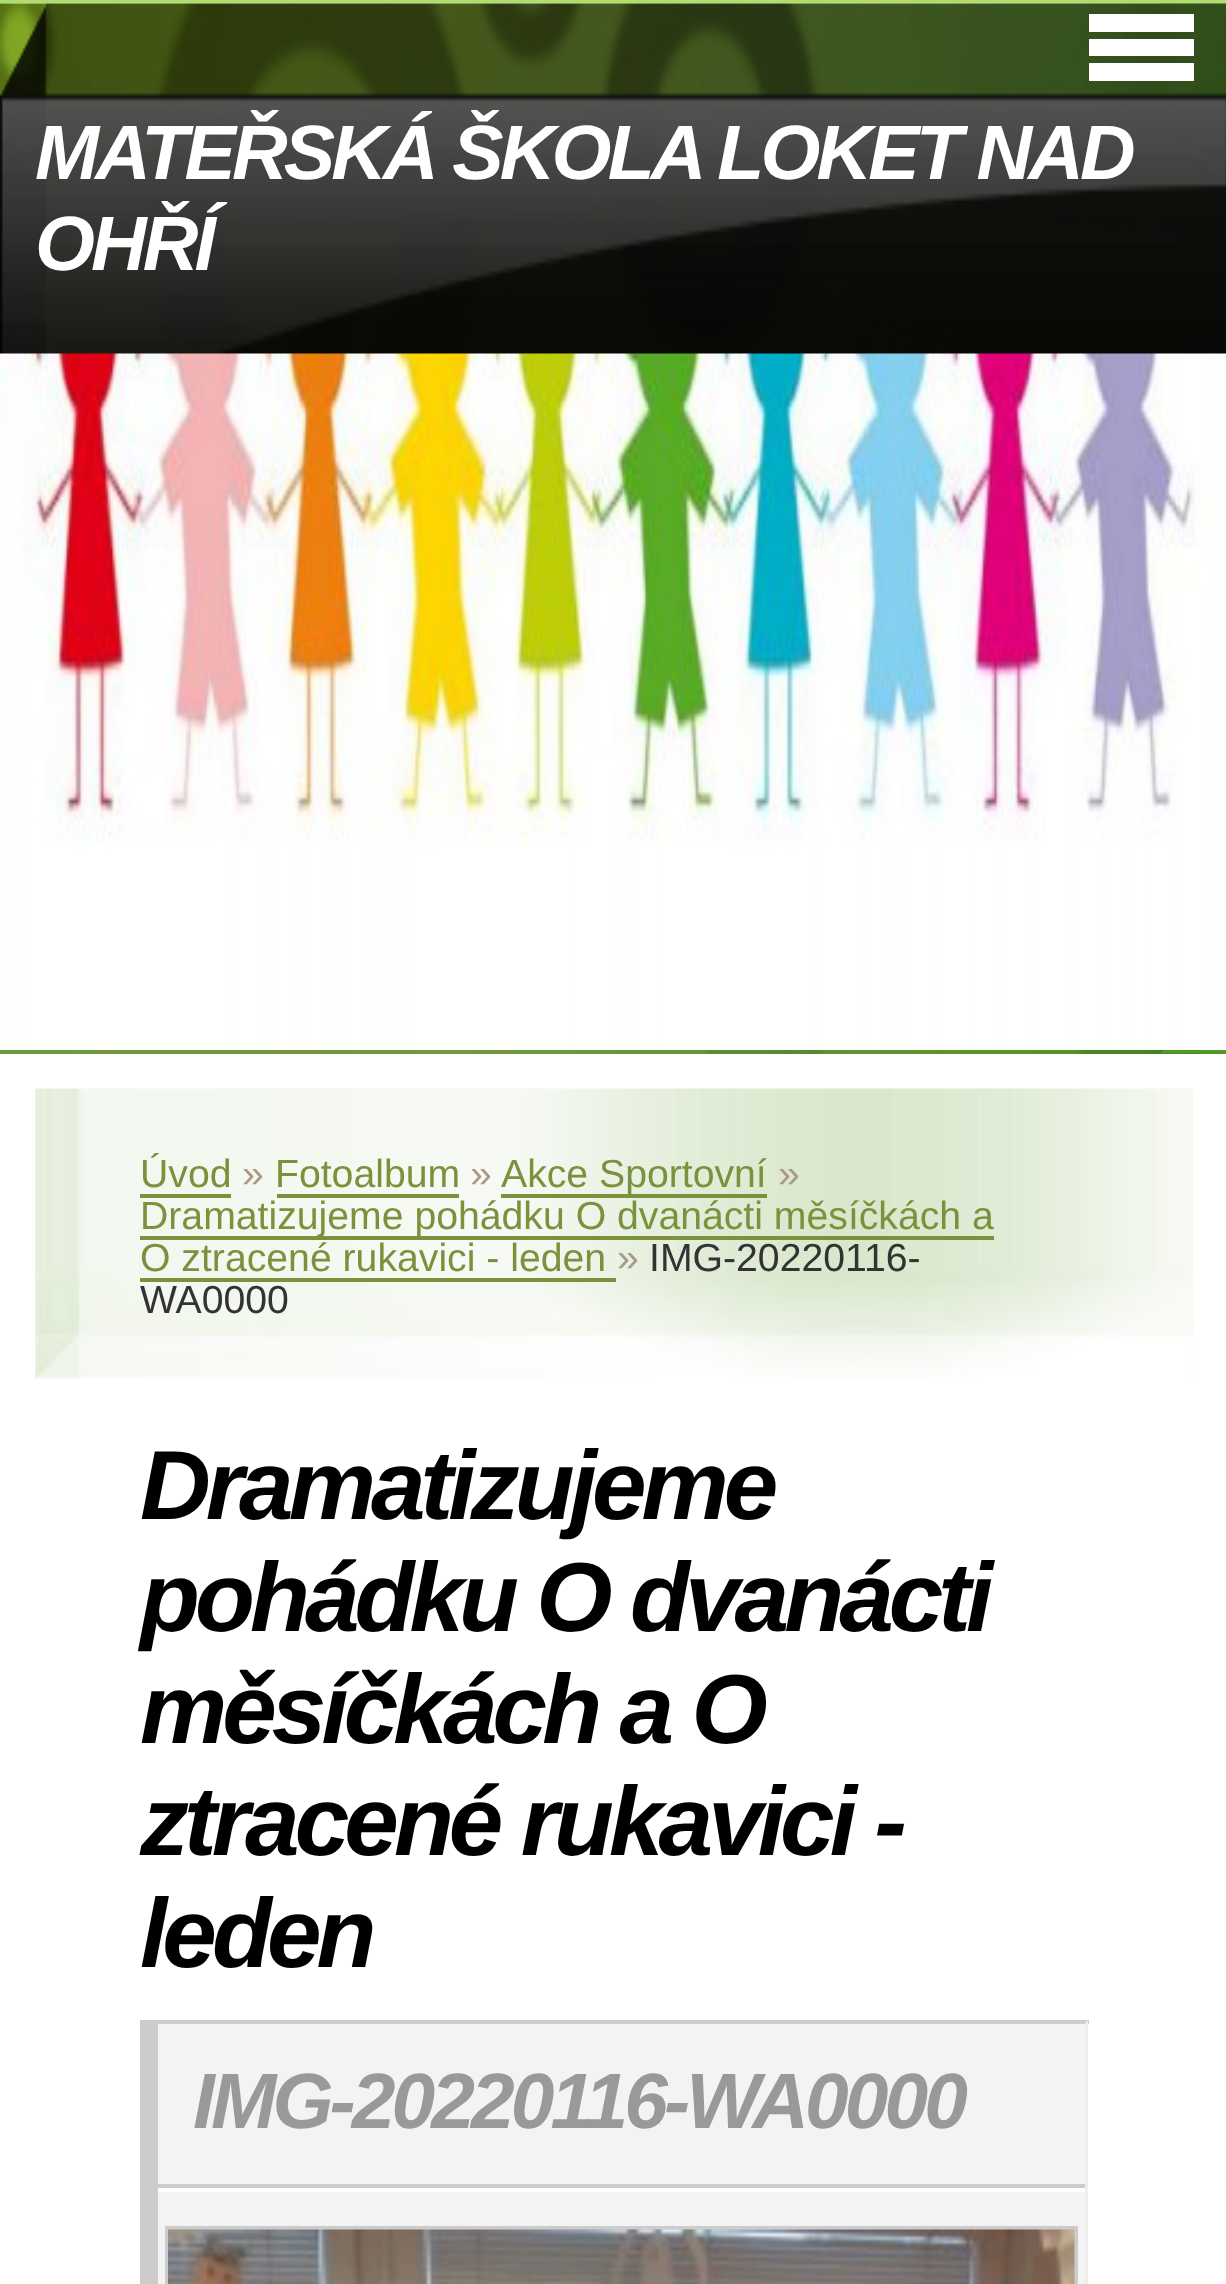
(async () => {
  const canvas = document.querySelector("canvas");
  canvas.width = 1226;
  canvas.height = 2284;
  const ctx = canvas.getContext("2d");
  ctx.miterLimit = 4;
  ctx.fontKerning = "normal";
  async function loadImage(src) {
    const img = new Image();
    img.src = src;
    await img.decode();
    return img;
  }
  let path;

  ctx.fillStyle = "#ffffff";
  ctx.fillRect(0, 0, 1226, 2284);
  ctx.drawImage(await loadImage("img/1.png"), 0, 1050, 1226, 4);
  ctx.fillStyle = "#b1dd6d";
  ctx.fillRect(0, 0, 1226, 4);
  ctx.drawImage(await loadImage("img/2.png"), 1158, 3, 68, 1051);
  ctx.drawImage(await loadImage("img/3.png"), 0, 3, 1226, 1047);
  ctx.drawImage(await loadImage("img/4.png"), 0, 3, 1226, 351);
  for (const [x, y, w, h, color] of [
    [1089, 14, 105, 18, "#ffffff"],
    [1089, 39, 105, 17, "#ffffff"],
    [1089, 63, 105, 18, "#ffffff"],
  ]) {
    ctx.fillStyle = color;
    ctx.fillRect(x, y, w, h);
  }
  ctx.drawImage(await loadImage("img/5.png"), 35, 1088, 1159, 291);
  for (const [x, y, w, h, color] of [
    [140, 1194, 91, 4, "#7b913c"],
    [277, 1194, 182, 4, "#7b913c"],
    [501, 1194, 266, 4, "#7b913c"],
    [140, 1236, 854, 4, "#7b913c"],
    [140, 1278, 476, 4, "#7b913c"],
    [158, 2024, 927, 260, "#f3f3f3"],
    [140, 2020, 949, 4, "#cccccc"],
  ]) {
    ctx.fillStyle = color;
    ctx.fillRect(x, y, w, h);
  }
  ctx.fillStyle = "#eeeeee";
  path = new Path2D("M1088 2020V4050L1085 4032V2023Z");
  ctx.fill(path);
  ctx.fillStyle = "#cccccc";
  path = new Path2D("M140 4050V2020L158 2023V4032Z");
  ctx.fill(path);
  ctx.fillRect(158, 2184, 927, 4);
  ctx.fillStyle = "#ffffff";
  ctx.fillRect(158, 2188, 927, 4);
  ctx.strokeStyle = "#cccccc";
  ctx.lineWidth = 4;
  ctx.strokeRect(167, 2228, 909, 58);
  ctx.drawImage(await loadImage("img/6.png"), 168, 2229, 907, 55);
  ctx.letterSpacing = "-3.85px";
  ctx.font = "italic bold 77px Liberation Sans";
  ctx.fillText("MATEŘSKÁ ŠKOLA LOKET NAD", 35, 179);
  ctx.fillText("OHŘÍ", 35, 270);
  ctx.letterSpacing = "0px";
  ctx.font = "39.2px Liberation Sans";
  ctx.fillStyle = "#7b913c";
  ctx.fillText("Úvod", 140, 1187);
  ctx.fillStyle = "#a99985";
  ctx.fillText("»", 242, 1187);
  ctx.fillStyle = "#7b913c";
  ctx.fillText("Fotoalbum", 275, 1187);
  ctx.fillStyle = "#a99985";
  ctx.fillText("»", 470, 1187);
  ctx.fillStyle = "#7b913c";
  ctx.fillText("Akce Sportovní", 501, 1187);
  ctx.fillStyle = "#a99985";
  ctx.fillText("»", 778, 1187);
  ctx.fillStyle = "#7b913c";
  ctx.fillText("Dramatizujeme pohádku O dvanácti měsíčkách a", 140, 1229);
  ctx.fillText("O ztracené rukavici - leden", 140, 1271);
  ctx.fillStyle = "#a99985";
  ctx.fillText("»", 617, 1271);
  ctx.fillStyle = "#333333";
  ctx.fillText("IMG-20220116-", 649, 1271);
  ctx.fillText("WA0000", 140, 1313);
  ctx.letterSpacing = "-4.9px";
  ctx.font = "italic bold 98px Liberation Sans";
  ctx.fillStyle = "#000000";
  for (const [text, x, y] of [
    ["Dramatizujeme", 140, 1519],
    ["pohádku O dvanácti", 140, 1631],
    ["měsíčkách a O", 140, 1743],
    ["ztracené rukavici -", 140, 1855],
    ["leden", 140, 1967],
  ]) {
    ctx.fillText(text, x, y);
  }
  ctx.letterSpacing = "-3.9px";
  ctx.font = "italic bold 78.5px Liberation Sans";
  ctx.fillStyle = "#999999";
  ctx.fillText("IMG-20220116-WA0000", 193, 2128);
})();
